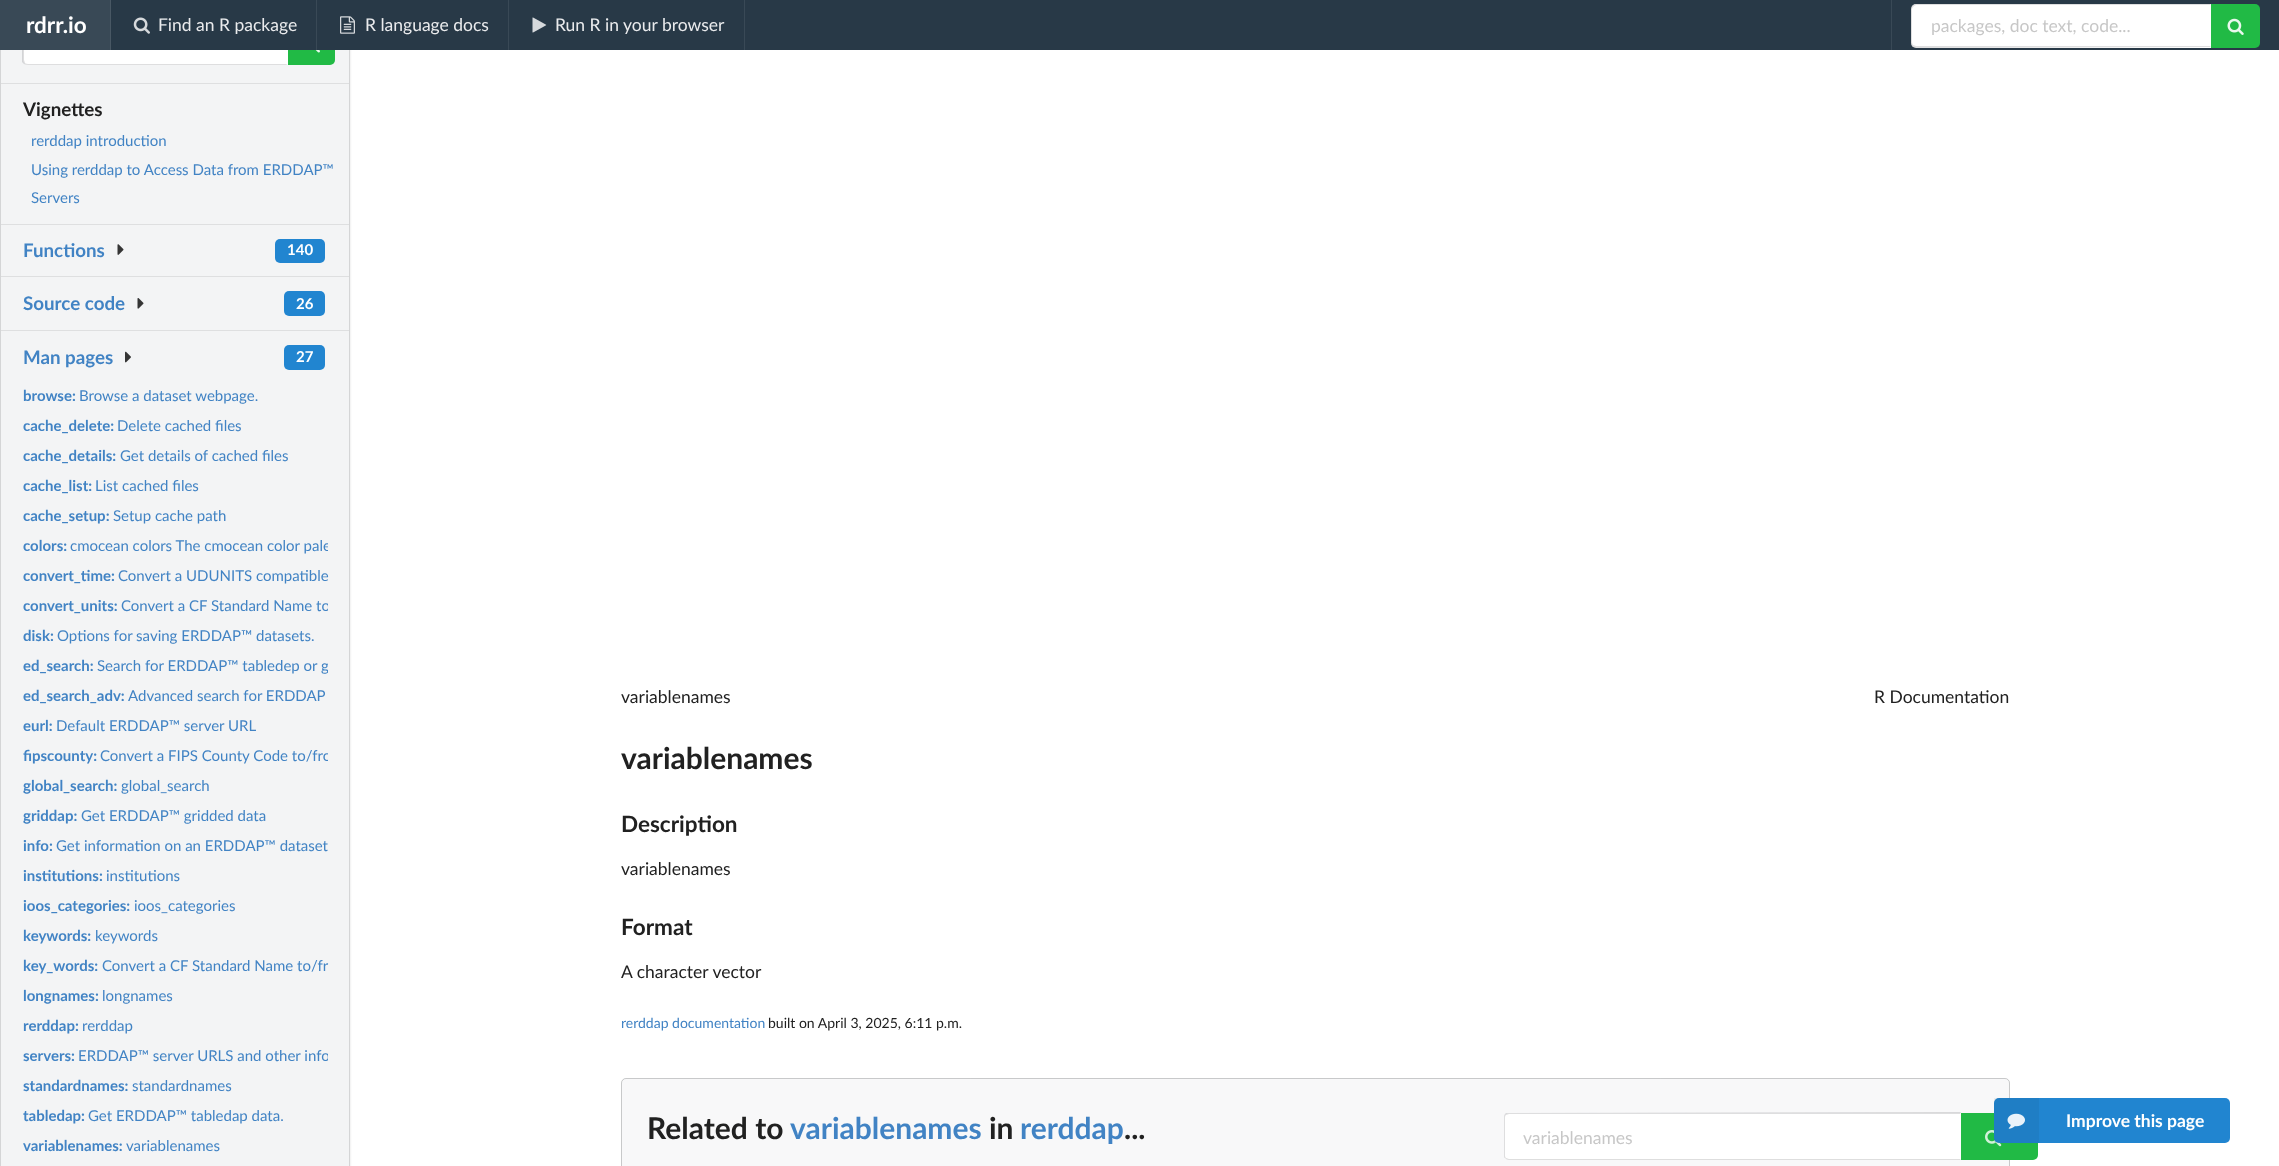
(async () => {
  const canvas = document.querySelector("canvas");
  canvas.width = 2279;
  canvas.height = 1166;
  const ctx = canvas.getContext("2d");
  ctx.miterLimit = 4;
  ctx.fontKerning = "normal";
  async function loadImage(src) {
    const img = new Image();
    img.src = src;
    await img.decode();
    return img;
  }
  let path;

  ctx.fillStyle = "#ffffff";
  ctx.fillRect(0, 0, 2279, 1166);
  ctx.fillStyle = "rgba(34, 36, 38, 0.15)";
  ctx.filter = "blur(1px)";
  ctx.beginPath();
  ctx.roundRect(0, -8, 350, 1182, 5);
  ctx.fill();
  ctx.filter = "none";
  ctx.fillStyle = "#f3f4f5";
  ctx.fillRect(1, 50, 348, 1116);
  ctx.strokeStyle = "#d4d5d6";
  ctx.strokeRect(0.5, -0.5, 349, 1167);
  ctx.fillStyle = "#ffffff";
  ctx.beginPath();
  ctx.roundRect(23, 19, 265, 46, [5, 0, 0, 5]);
  ctx.fill();
  ctx.fillStyle = "#21ba45";
  ctx.beginPath();
  ctx.roundRect(288, 19, 47, 46, [0, 5, 5, 0]);
  ctx.fill();
  ctx.fillStyle = "#283947";
  ctx.fillRect(111, 0, 2168, 50);
  ctx.fillStyle = "rgba(34, 36, 38, 0.15)";
  path = new Path2D("M288 65L286 64H28C26 64 25 63 25 63L24 64C25 64 26 65 28 65Z");
  ctx.fill(path);
  path = new Path2D("M22 22L24 20L25 21C24 22 24 23 24 24V60L25 63L24 64L22 62Z");
  ctx.fill(path);
  ctx.fillStyle = "#394956";
  ctx.fillRect(0, 0, 110, 50);
  ctx.fillStyle = "#495864";
  ctx.fillRect(110, 0, 1, 50);
  ctx.drawImage(await loadImage("img/1.png"), 133, 17, 17, 17);
  ctx.fillStyle = "#394956";
  ctx.fillRect(316, 0, 1, 50);
  ctx.drawImage(await loadImage("img/2.png"), 340, 16, 15, 18);
  ctx.fillRect(508, 0, 1, 50);
  ctx.drawImage(await loadImage("img/3.png"), 532, 17, 15, 16);
  ctx.fillRect(744, 0, 1, 50);
  ctx.fillRect(1891, 0, 1, 50);
  ctx.fillStyle = "#ffffff";
  ctx.beginPath();
  ctx.roundRect(1911, 4, 300, 44, [5, 0, 0, 5]);
  ctx.fill();
  ctx.fillStyle = "rgba(34, 36, 38, 0.15)";
  path = new Path2D("M1916 4L1913 5L1914 6L1916 5H2210L2211 4Z");
  ctx.fill(path);
  path = new Path2D("M1914 48L1912 46L1913 45L1916 46H2210L2211 47Z");
  ctx.fill(path);
  path = new Path2D("M1911 7L1913 5L1914 6C1913 7 1912 8 1912 9V42C1912 44 1913 45 1913 45L1912 46L1911 44Z");
  ctx.fill(path);
  ctx.fillStyle = "#21ba45";
  ctx.beginPath();
  ctx.roundRect(2211, 4, 49, 44, [0, 5, 5, 0]);
  ctx.fill();
  ctx.drawImage(await loadImage("img/4.png"), 2227, 18, 17, 17);
  ctx.drawImage(await loadImage("img/5.png"), 315, 50, 5, 3);
  ctx.fillStyle = "#dedfe0";
  ctx.fillRect(1, 83, 348, 1);
  ctx.fillRect(1, 224, 348, 1);
  ctx.drawImage(await loadImage("img/6.png"), 117, 244, 7, 11);
  ctx.fillStyle = "#2185d0";
  ctx.beginPath();
  ctx.roundRect(275, 239, 50, 24, 5);
  ctx.fill();
  ctx.fillStyle = "#dedfe0";
  ctx.fillRect(1, 276, 348, 1);
  ctx.drawImage(await loadImage("img/7.png"), 137, 298, 7, 11);
  ctx.fillStyle = "#2185d0";
  ctx.beginPath();
  ctx.roundRect(284, 291, 41, 25, 5);
  ctx.fill();
  ctx.fillStyle = "#dedfe0";
  ctx.fillRect(1, 330, 348, 1);
  ctx.drawImage(await loadImage("img/8.png"), 125, 351, 6, 12);
  ctx.fillStyle = "#2185d0";
  ctx.beginPath();
  ctx.roundRect(284, 345, 41, 25, 5);
  ctx.fill();
  ctx.fillStyle = "#f8f8f9";
  ctx.beginPath();
  ctx.roundRect(621, 1078, 1389, 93, 5);
  ctx.fill();
  ctx.beginPath();
  ctx.roundRect(621.5, 1078.5, 1388, 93, 4.5);
  ctx.strokeStyle = "rgba(34, 36, 38, 0.22)";
  ctx.stroke();
  ctx.fillStyle = "#ffffff";
  ctx.beginPath();
  ctx.roundRect(1504, 1113, 457, 47, [5, 0, 0, 5]);
  ctx.fill();
  ctx.fillStyle = "rgba(34, 36, 38, 0.15)";
  path = new Path2D("M1509 1114L1506 1115L1505 1114L1506 1113L1961 1112L1960 1114Z");
  ctx.fill(path);
  ctx.fillStyle = "#dedede";
  path = new Path2D("M1509 1160H1961L1960 1159H1509L1506 1158H1505C1506 1159 1507 1160 1509 1160Z");
  ctx.fill(path);
  ctx.fillStyle = "rgba(34, 36, 38, 0.15)";
  path = new Path2D("M1505 1158C1504 1158 1504 1156 1504 1155V1118C1504 1117 1504 1115 1505 1114L1506 1115C1505 1116 1505 1117 1505 1118V1155C1505 1156 1505 1157 1506 1158Z");
  ctx.fill(path);
  ctx.fillStyle = "#21ba45";
  ctx.beginPath();
  ctx.roundRect(1961, 1113, 77, 47, [0, 5, 5, 0]);
  ctx.fill();
  ctx.drawImage(await loadImage("img/9.png"), 1985, 1130, 17, 17);
  ctx.fillStyle = "#2185d0";
  ctx.beginPath();
  ctx.roundRect(1994, 1098, 236, 45, 5);
  ctx.fill();
  ctx.fillStyle = "rgba(0, 0, 0, 0.05)";
  ctx.fillRect(1994, 1098, 45, 45);
  ctx.drawImage(await loadImage("img/10.png"), 2007, 1113, 18, 16);
  ctx.font = "bold 22.5px Lato";
  ctx.fillStyle = "#ffffff";
  ctx.fillText("rdrr.io", 26, 33);
  ctx.font = "17.5px Lato";
  ctx.fillStyle = "#eaebed";
  for (const [text, x, y] of [
    ["Find an R package", 158, 31],
    ["R language docs", 365, 31],
    ["Run R in your browser", 555, 31],
  ]) {
    ctx.fillText(text, x, y);
  }
  ctx.fillStyle = "#c7c7c7";
  ctx.fillText("packages, doc text, code...", 1931, 32);
  ctx.font = "bold 18.75px Lato";
  ctx.fillStyle = "#212121";
  ctx.fillText("Vignettes", 23, 116);
  ctx.font = "15px Lato";
  ctx.fillStyle = "#4183c4";
  for (const [text, x, y] of [
    ["rerddap introduction", 31, 146],
    ["Using rerddap to Access Data from ERDDAP™", 31, 175],
    ["Servers", 31, 203],
  ]) {
    ctx.fillText(text, x, y);
  }
  ctx.font = "bold 18.75px Lato";
  ctx.fillText("Functions", 23, 257);
  ctx.font = "bold 15px Lato";
  ctx.fillStyle = "#ffffff";
  ctx.fillText("140", 287, 255);
  ctx.font = "bold 18.75px Lato";
  ctx.fillStyle = "#4183c4";
  ctx.fillText("Source code", 23, 310);
  ctx.font = "bold 15px Lato";
  ctx.fillStyle = "#ffffff";
  ctx.fillText("26", 296, 309);
  ctx.font = "bold 18.75px Lato";
  ctx.fillStyle = "#4183c4";
  ctx.fillText("Man pages", 23, 364);
  ctx.font = "bold 15px Lato";
  ctx.fillStyle = "#ffffff";
  ctx.fillText("27", 296, 362);
  ctx.fillStyle = "#4183c4";
  ctx.fillText("browse:", 23, 401);
  ctx.font = "15px Lato";
  ctx.fillText("Browse a dataset webpage.", 79, 401);
  ctx.font = "bold 15px Lato";
  ctx.fillText("cache_delete:", 23, 431);
  ctx.font = "15px Lato";
  ctx.fillText("Delete cached files", 117, 431);
  ctx.font = "bold 15px Lato";
  ctx.fillText("cache_details:", 23, 461);
  ctx.font = "15px Lato";
  ctx.fillText("Get details of cached files", 120, 461);
  ctx.font = "bold 15px Lato";
  ctx.fillText("cache_list:", 23, 491);
  ctx.font = "15px Lato";
  ctx.fillText("List cached files", 95, 491);
  ctx.font = "bold 15px Lato";
  ctx.fillText("cache_setup:", 23, 521);
  ctx.font = "15px Lato";
  ctx.fillText("Setup cache path", 113, 521);
  ctx.font = "bold 15px Lato";
  ctx.fillText("colors:", 23, 551);
  ctx.save();
  ctx.beginPath();
  ctx.rect(23, 531, 305, 30);
  ctx.clip();
  ctx.font = "15px Lato";
  ctx.fillText("cmocean colors The cmocean color pale", 70, 551);
  ctx.restore();
  ctx.fillText("convert_time:", 23, 581);
  ctx.font = "15px Lato";
  ctx.fillText("Convert a UDUNITS compatible", 118, 581);
  ctx.font = "bold 15px Lato";
  ctx.fillText("convert_units:", 23, 611);
  ctx.save();
  ctx.beginPath();
  ctx.rect(23, 591, 305, 30);
  ctx.clip();
  ctx.font = "15px Lato";
  ctx.fillText("Convert a CF Standard Name to", 121, 611);
  ctx.restore();
  ctx.fillText("disk:", 23, 641);
  ctx.font = "15px Lato";
  ctx.fillText("Options for saving ERDDAP™ datasets.", 57, 641);
  ctx.font = "bold 15px Lato";
  ctx.fillText("ed_search:", 23, 671);
  ctx.save();
  ctx.beginPath();
  ctx.rect(23, 651, 305, 30);
  ctx.clip();
  ctx.font = "15px Lato";
  ctx.fillText("Search for ERDDAP™ tabledep or g", 97, 671);
  ctx.restore();
  ctx.fillText("ed_search_adv:", 23, 701);
  ctx.font = "15px Lato";
  ctx.fillText("Advanced search for ERDDAP", 128, 701);
  ctx.font = "bold 15px Lato";
  ctx.fillText("eurl:", 23, 731);
  ctx.font = "15px Lato";
  ctx.fillText("Default ERDDAP™ server URL", 56, 731);
  ctx.font = "bold 15px Lato";
  ctx.fillText("fipscounty:", 23, 761);
  ctx.save();
  ctx.beginPath();
  ctx.rect(23, 741, 305, 30);
  ctx.clip();
  ctx.font = "15px Lato";
  ctx.fillText("Convert a FIPS County Code to/fro", 100, 761);
  ctx.restore();
  ctx.fillText("global_search:", 23, 791);
  ctx.font = "15px Lato";
  ctx.fillText("global_search", 121, 791);
  ctx.font = "bold 15px Lato";
  ctx.fillText("griddap:", 23, 821);
  ctx.font = "15px Lato";
  ctx.fillText("Get ERDDAP™ gridded data", 81, 821);
  ctx.font = "bold 15px Lato";
  ctx.fillText("info:", 23, 851);
  ctx.font = "15px Lato";
  ctx.fillText("Get information on an ERDDAP™ dataset", 56, 851);
  ctx.font = "bold 15px Lato";
  ctx.fillText("institutions:", 23, 881);
  ctx.font = "15px Lato";
  ctx.fillText("institutions", 106, 881);
  ctx.font = "bold 15px Lato";
  ctx.fillText("ioos_categories:", 23, 911);
  ctx.font = "15px Lato";
  ctx.fillText("ioos_categories", 134, 911);
  ctx.font = "bold 15px Lato";
  ctx.fillText("keywords:", 23, 941);
  ctx.font = "15px Lato";
  ctx.fillText("keywords", 95, 941);
  ctx.font = "bold 15px Lato";
  ctx.fillText("key_words:", 23, 971);
  ctx.font = "15px Lato";
  ctx.fillText("Convert a CF Standard Name to/fr", 102, 971);
  ctx.font = "bold 15px Lato";
  ctx.fillText("longnames:", 23, 1001);
  ctx.font = "15px Lato";
  ctx.fillText("longnames", 102, 1001);
  ctx.font = "bold 15px Lato";
  ctx.fillText("rerddap:", 23, 1031);
  ctx.font = "15px Lato";
  ctx.fillText("rerddap", 82, 1031);
  ctx.font = "bold 15px Lato";
  ctx.fillText("servers:", 23, 1061);
  ctx.save();
  ctx.beginPath();
  ctx.rect(23, 1041, 305, 30);
  ctx.clip();
  ctx.font = "15px Lato";
  ctx.fillText("ERDDAP™ server URLS and other info", 78, 1061);
  ctx.restore();
  ctx.fillText("standardnames:", 23, 1091);
  ctx.font = "15px Lato";
  ctx.fillText("standardnames", 132, 1091);
  ctx.font = "bold 15px Lato";
  ctx.fillText("tabledap:", 23, 1121);
  ctx.font = "15px Lato";
  ctx.fillText("Get ERDDAP™ tabledap data.", 88, 1121);
  ctx.font = "bold 15px Lato";
  ctx.fillText("variablenames:", 23, 1151);
  ctx.font = "15px Lato";
  ctx.fillText("variablenames", 126, 1151);
  ctx.font = "17.5px Lato";
  ctx.fillStyle = "#212121";
  ctx.fillText("variablenames", 621, 703);
  ctx.fillText("R Documentation", 1874, 703);
  ctx.font = "bold 30px Lato";
  ctx.fillText("variablenames", 621, 769);
  ctx.font = "bold 22.5px Lato";
  ctx.fillText("Description", 621, 832);
  ctx.font = "17.5px Lato";
  ctx.fillText("variablenames", 621, 875);
  ctx.font = "bold 22.5px Lato";
  ctx.fillText("Format", 621, 935);
  ctx.font = "17.5px Lato";
  ctx.fillText("A character vector", 621, 978);
  ctx.font = "14px Lato";
  ctx.fillStyle = "#4183c4";
  ctx.fillText("rerddap documentation", 621, 1028);
  ctx.fillStyle = "#212121";
  ctx.fillText("built on April 3, 2025, 6:11 p.m.", 768, 1028);
  ctx.font = "bold 30px Lato";
  ctx.fillText("Related to", 647, 1139);
  ctx.fillStyle = "#4183c4";
  ctx.fillText("variablenames", 790, 1139);
  ctx.fillStyle = "#212121";
  ctx.fillText("in", 989, 1139);
  ctx.fillStyle = "#4183c4";
  ctx.fillText("rerddap", 1020, 1139);
  ctx.fillStyle = "#212121";
  ctx.fillText("...", 1124, 1139);
  ctx.font = "17.5px Lato";
  ctx.fillStyle = "#c7c7c7";
  ctx.fillText("variablenames", 1523, 1144);
  ctx.font = "bold 17.5px Lato";
  ctx.fillStyle = "#ffffff";
  ctx.fillText("Improve this page", 2066, 1127);
})();
